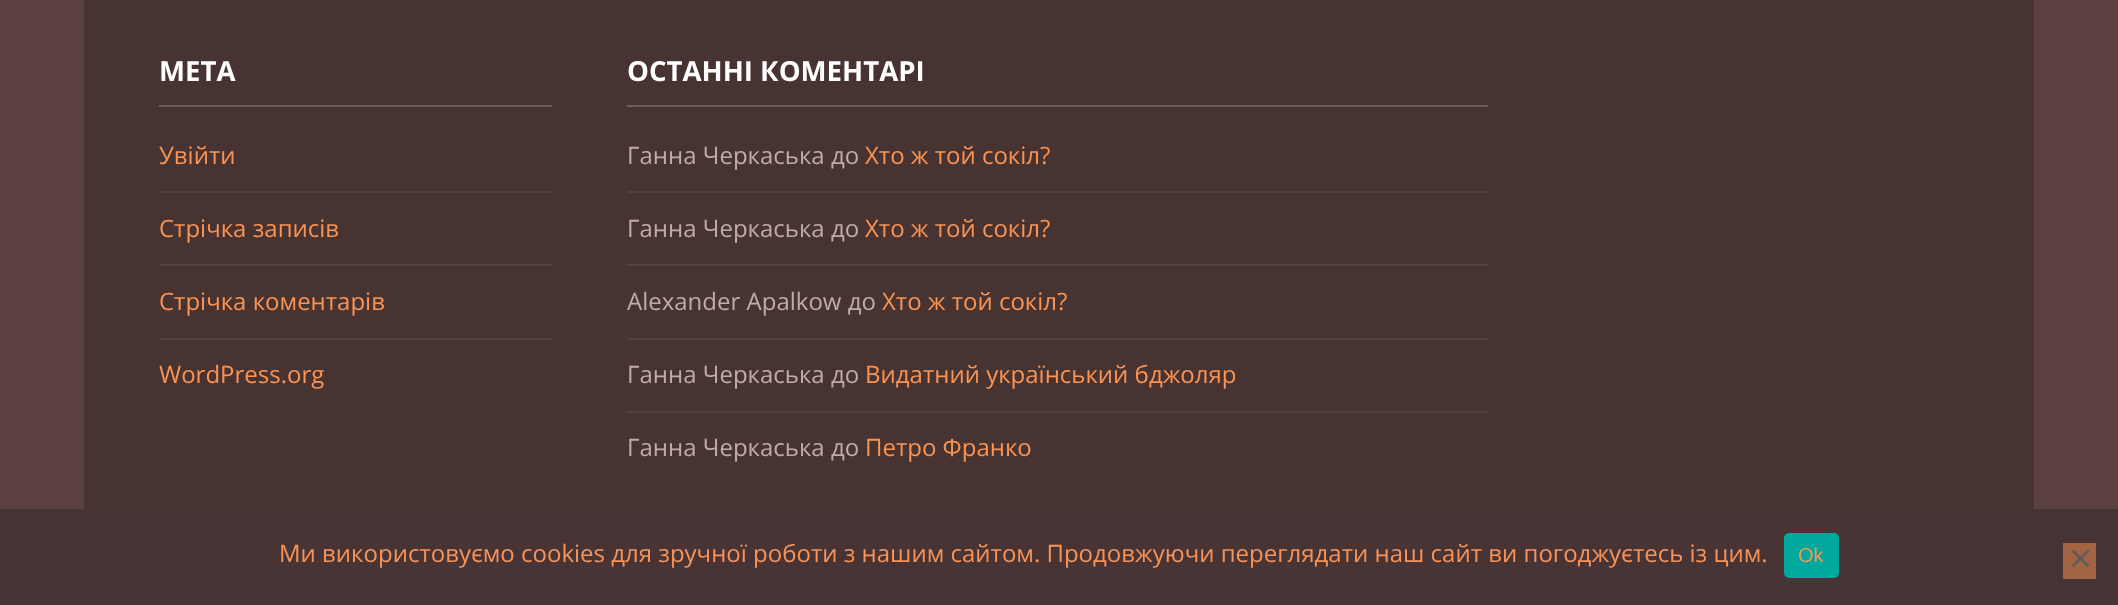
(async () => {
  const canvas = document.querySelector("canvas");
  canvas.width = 2118;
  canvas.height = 605;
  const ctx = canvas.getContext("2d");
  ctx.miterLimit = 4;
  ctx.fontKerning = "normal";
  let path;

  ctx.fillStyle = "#5b4141";
  ctx.fillRect(0, 0, 2118, 605);
  for (const [x, y, w, h, color] of [
    [84, 0, 1950, 509, "#483333"],
    [159, 105, 393, 2, "#6d5c5c"],
    [159, 191, 393, 2, "#554141"],
    [159, 264, 393, 2, "#554141"],
    [159, 338, 393, 2, "#554141"],
    [627, 105, 861, 2, "#6d5c5c"],
    [627, 191, 861, 2, "#554141"],
    [627, 264, 861, 2, "#554141"],
    [627, 338, 861, 2, "#554141"],
    [627, 411, 861, 2, "#554141"],
    [0, 509, 2118, 96, "#483434"],
  ]) {
    ctx.fillStyle = color;
    ctx.fillRect(x, y, w, h);
  }
  ctx.fillStyle = "#00a99d";
  ctx.beginPath();
  ctx.roundRect(1784, 533, 55, 45, 5);
  ctx.fill();
  ctx.fillStyle = "#a26443";
  ctx.fillRect(2063, 543, 33, 36);
  ctx.fillStyle = "#645a5a";
  path = new Path2D("M2087.5 549.5L2089.5 551.5L2073.5 567.5L2071.5 565Z");
  ctx.fill(path);
  path = new Path2D("M2071.5 551.5L2073.5 549.5L2089.5 565L2087.5 567.5Z");
  ctx.fill(path);
  ctx.font = "bold 27.6px Open Sans";
  ctx.fillStyle = "#ffffff";
  ctx.fillText("МЕТА", 159, 81);
  ctx.font = "24px Open Sans";
  ctx.fillStyle = "#fb9351";
  for (const [text, x, y] of [
    ["Увійти", 159, 164],
    ["Стрічка записів", 159, 237],
    ["Стрічка коментарів", 159, 310],
    ["WordPress.org", 159, 383],
  ]) {
    ctx.fillText(text, x, y);
  }
  ctx.font = "bold 27.6px Open Sans";
  ctx.fillStyle = "#ffffff";
  ctx.fillText("ОСТАННІ КОМЕНТАРІ", 627, 81);
  ctx.font = "24px Open Sans";
  ctx.fillStyle = "#c0abab";
  ctx.fillText("Ганна Черкаська до", 627, 164);
  ctx.fillStyle = "#fb9351";
  ctx.fillText("Хто ж той сокіл?", 865, 164);
  ctx.fillStyle = "#c0abab";
  ctx.fillText("Ганна Черкаська до", 627, 237);
  ctx.fillStyle = "#fb9351";
  ctx.fillText("Хто ж той сокіл?", 865, 237);
  ctx.fillStyle = "#c0abab";
  ctx.fillText("Alexander Apalkow до", 627, 310);
  ctx.fillStyle = "#fb9351";
  ctx.fillText("Хто ж той сокіл?", 882, 310);
  ctx.fillStyle = "#c0abab";
  ctx.fillText("Ганна Черкаська до", 627, 383);
  ctx.fillStyle = "#fb9351";
  ctx.fillText("Видатний український бджоляр", 865, 383);
  ctx.fillStyle = "#c0abab";
  ctx.fillText("Ганна Черкаська до", 627, 456);
  ctx.fillStyle = "#fb9351";
  ctx.fillText("Петро Франко", 865, 456);
  ctx.fillStyle = "#f89358";
  ctx.fillText("Ми використовуємо cookies для зручної роботи з нашим сайтом. Продовжуючи переглядати наш сайт ви погоджуєтесь із цим.", 279, 562);
  ctx.font = "20px Liberation Sans";
  ctx.fillText("Ok", 1798, 562);
})();
